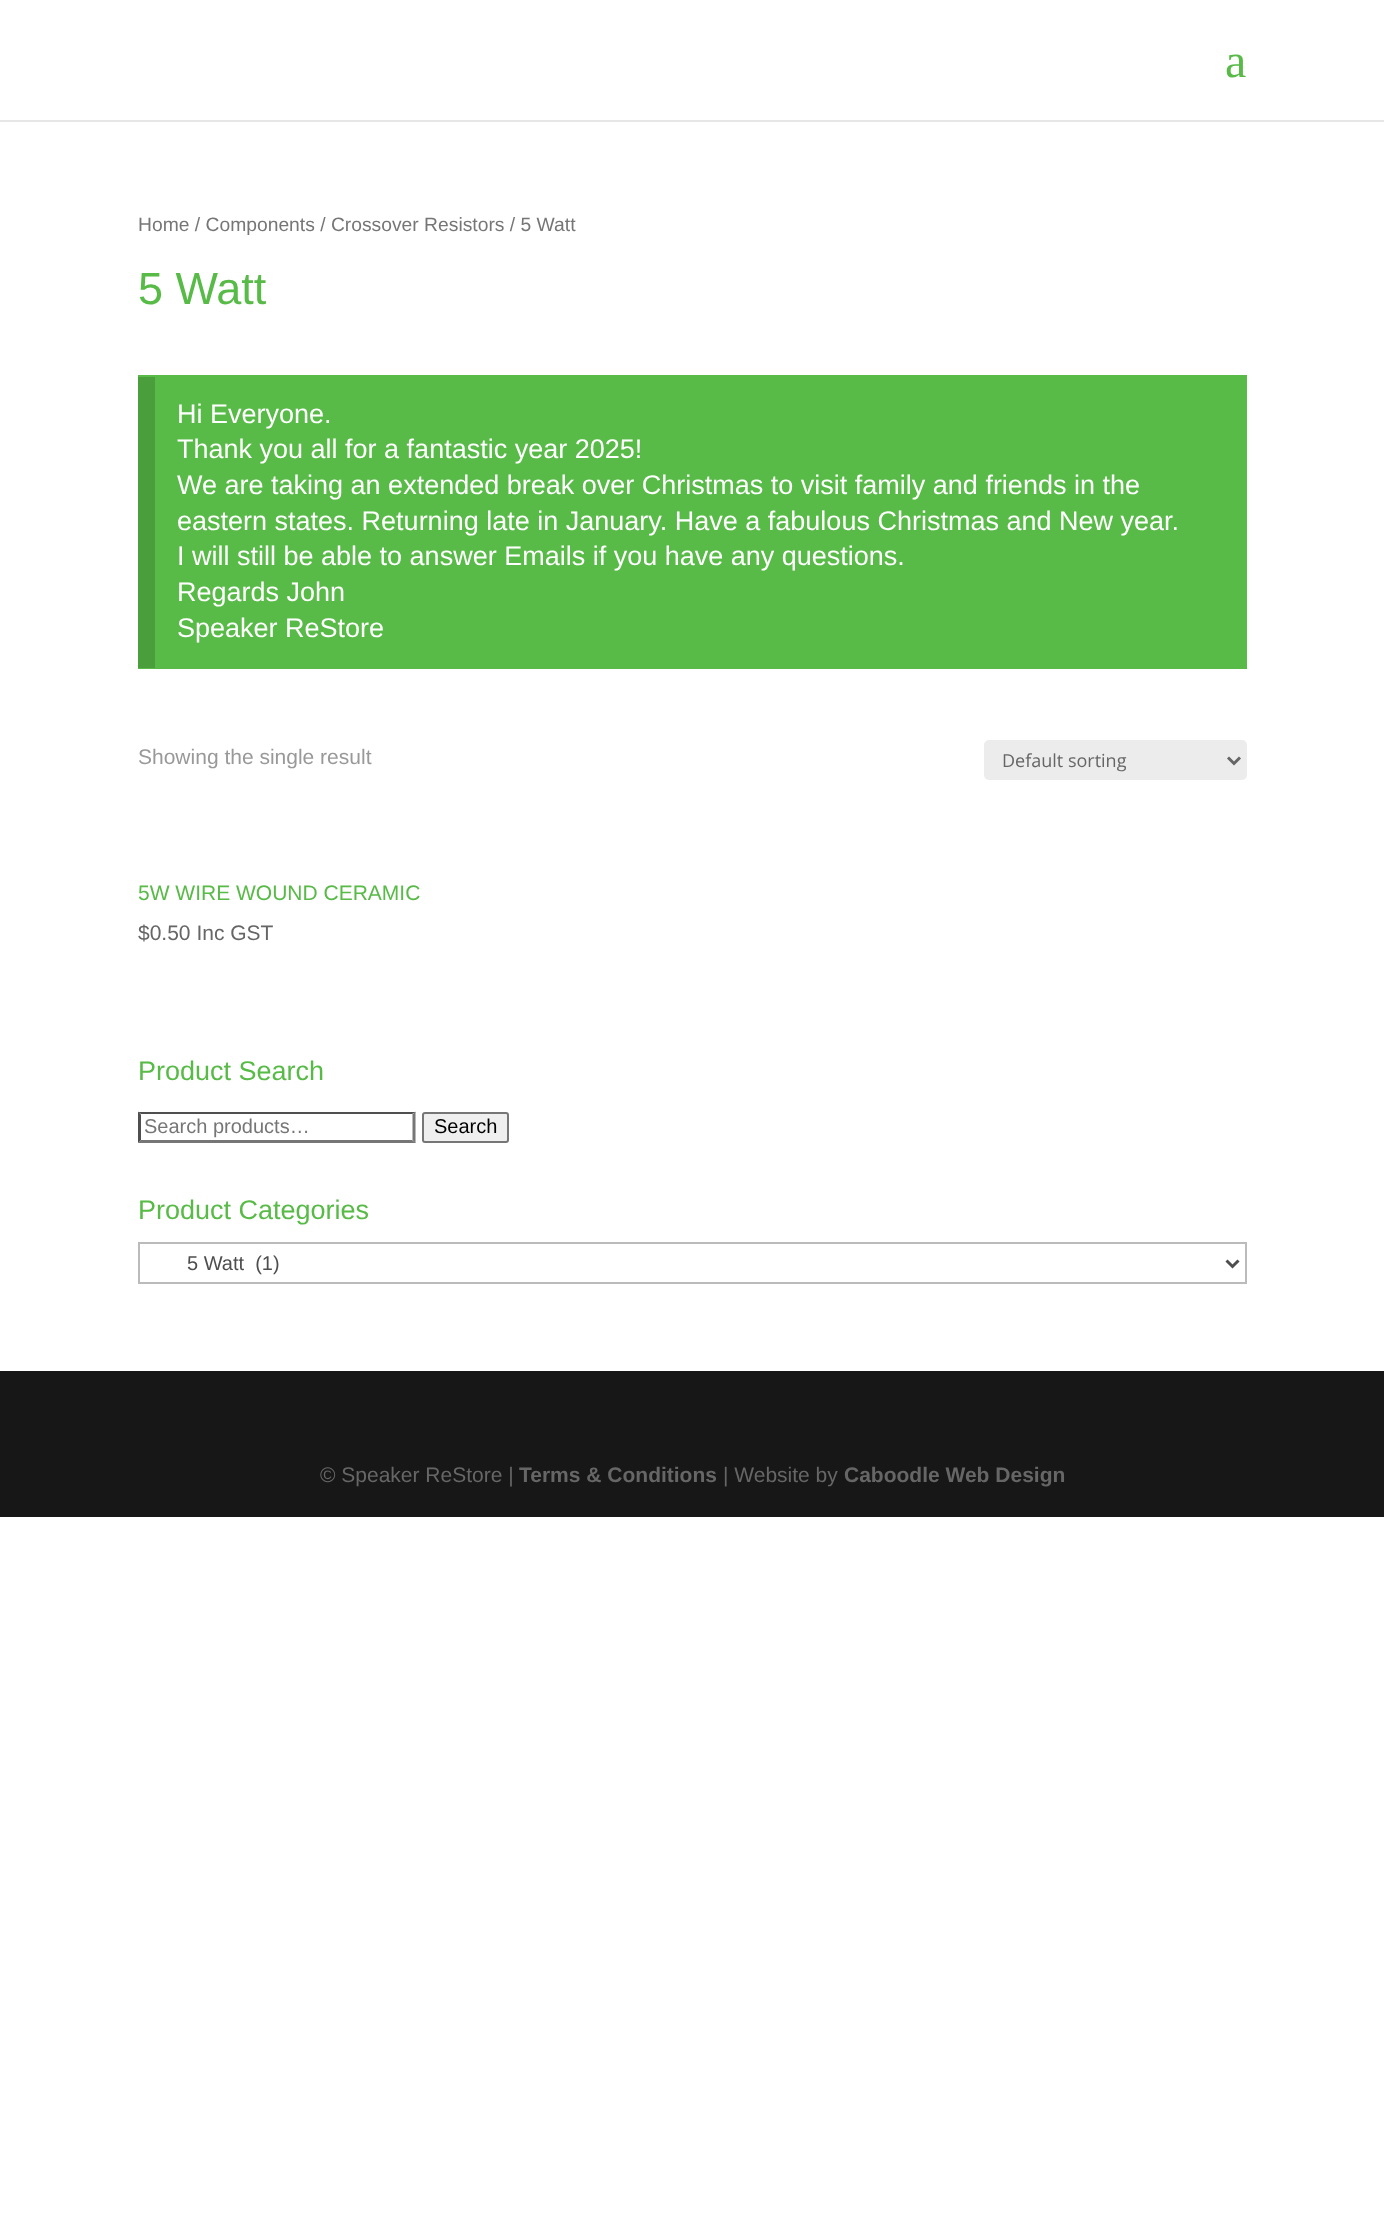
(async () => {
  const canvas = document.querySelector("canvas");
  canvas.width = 1384;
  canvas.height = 2230;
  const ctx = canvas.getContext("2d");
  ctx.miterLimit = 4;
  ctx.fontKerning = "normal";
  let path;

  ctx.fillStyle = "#ffffff";
  ctx.fillRect(0, 0, 1384, 2230);
  ctx.fillStyle = "#e6e6e6";
  path = new Path2D("M0 120V122H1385V2H1384V120Z");
  ctx.fill(path);
  ctx.fillStyle = "#58ba47";
  ctx.fillRect(138, 375, 1109, 294);
  ctx.fillStyle = "#4b9e3c";
  ctx.fillRect(138, 377, 17, 291);
  ctx.fillStyle = "#ececec";
  ctx.beginPath();
  ctx.roundRect(984, 740, 263, 40, 5);
  ctx.fill();
  path = new Path2D("M1228 757.5L1234 763.5L1240 757.5");
  ctx.strokeStyle = "#666666";
  ctx.lineWidth = 3;
  ctx.stroke(path);
  ctx.fillStyle = "#4f4f4f";
  path = new Path2D("M138 1112H416L412 1114H141Z");
  ctx.fill(path);
  ctx.fillStyle = "#767676";
  path = new Path2D("M415.5 1111.5V1143L412.5 1140V1114.5Z");
  ctx.fill(path);
  path = new Path2D("M416 1143H138L141 1140H412Z");
  ctx.fill(path);
  ctx.fillStyle = "#4f4f4f";
  path = new Path2D("M138 1143V1111.5L141 1114.5V1140Z");
  ctx.fill(path);
  ctx.fillStyle = "#efefef";
  ctx.beginPath();
  ctx.roundRect(423, 1113, 85, 29, 2);
  ctx.fill();
  ctx.strokeStyle = "#767676";
  ctx.lineWidth = 2;
  ctx.stroke();
  ctx.strokeStyle = "#bbbbbb";
  ctx.strokeRect(139, 1243, 1107, 40);
  path = new Path2D("M1226.5 1260.5L1232.5 1266.5L1238.5 1260.5");
  ctx.strokeStyle = "#4e4e4e";
  ctx.lineWidth = 3;
  ctx.stroke(path);
  ctx.fillStyle = "#171717";
  ctx.fillRect(0, 1371, 1384, 146);
  ctx.font = "48px Liberation Serif";
  ctx.fillStyle = "#58ba47";
  ctx.fillText("a", 1225, 77);
  ctx.font = "19.3px Liberation Sans";
  ctx.fillStyle = "#767676";
  ctx.fillText("Home / Components / Crossover Resistors / 5 Watt", 138, 231);
  ctx.font = "45px Liberation Sans";
  ctx.fillStyle = "#58ba47";
  ctx.fillText("5 Watt", 138, 304);
  ctx.font = "27px Liberation Sans";
  ctx.fillStyle = "#ffffff";
  for (const [text, x, y] of [
    ["Hi Everyone.", 177, 423],
    ["Thank you all for a fantastic year 2025!", 177, 458],
    ["We are taking an extended break over Christmas to visit family and friends in the", 177, 494],
    ["eastern states. Returning late in January. Have a fabulous Christmas and New year.", 177, 530],
    ["I will still be able to answer Emails if you have any questions.", 177, 565],
    ["Regards John", 177, 601],
    ["Speaker ReStore", 177, 637],
  ]) {
    ctx.fillText(text, x, y);
  }
  ctx.font = "21px Liberation Sans";
  ctx.fillStyle = "#999999";
  ctx.fillText("Showing the single result", 138, 764);
  ctx.font = "18px Open Sans";
  ctx.fillStyle = "#666666";
  ctx.fillText("Default sorting", 1002, 767);
  ctx.font = "21px Liberation Sans";
  ctx.fillStyle = "#58ba47";
  ctx.fillText("5W WIRE WOUND CERAMIC", 138, 900);
  ctx.fillStyle = "#666666";
  ctx.fillText("$0.50 Inc GST", 138, 940);
  ctx.font = "27px Liberation Sans";
  ctx.fillStyle = "#58ba47";
  ctx.fillText("Product Search", 138, 1080);
  ctx.font = "20px Liberation Sans";
  ctx.fillStyle = "#767676";
  ctx.fillText("Search products…", 144, 1133);
  ctx.fillStyle = "#000000";
  ctx.fillText("Search", 434, 1133);
  ctx.font = "27px Liberation Sans";
  ctx.fillStyle = "#58ba47";
  ctx.fillText("Product Categories", 138, 1219);
  ctx.font = "20px Liberation Sans";
  ctx.fillStyle = "#4e4e4e";
  ctx.fillText("5 Watt  (1)", 187, 1270);
  ctx.font = "21px Liberation Sans";
  ctx.fillStyle = "#666666";
  ctx.fillText("© Speaker ReStore |", 320, 1482);
  ctx.font = "bold 21px Liberation Sans";
  ctx.fillText("Terms & Conditions", 519, 1482);
  ctx.font = "21px Liberation Sans";
  ctx.fillText("| Website by", 723, 1482);
  ctx.font = "bold 21px Liberation Sans";
  ctx.fillText("Caboodle Web Design", 844, 1482);
})();
